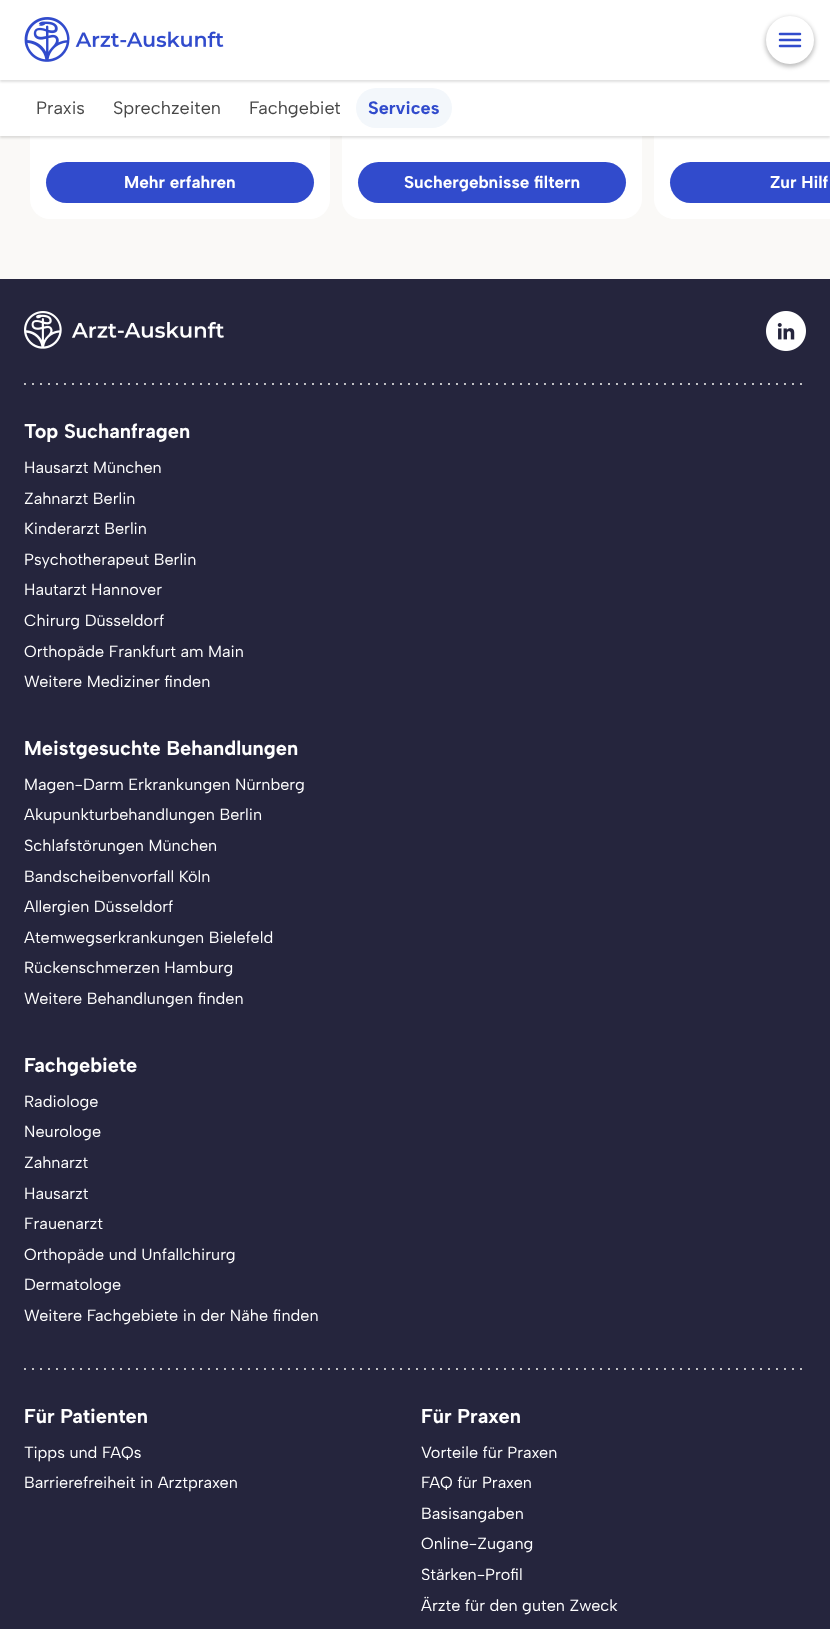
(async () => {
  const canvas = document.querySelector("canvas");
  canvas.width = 830;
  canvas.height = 1629;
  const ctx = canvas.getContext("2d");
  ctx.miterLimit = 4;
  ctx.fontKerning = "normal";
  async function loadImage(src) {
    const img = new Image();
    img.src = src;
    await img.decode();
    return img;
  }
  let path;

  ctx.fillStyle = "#faf9f7";
  ctx.fillRect(0, 0, 830, 1629);
  ctx.fillStyle = "#ffffff";
  ctx.beginPath();
  ctx.roundRect(30, -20, 300, 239, 20);
  ctx.fill();
  ctx.beginPath();
  ctx.roundRect(342, -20, 300, 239, 20);
  ctx.fill();
  path = new Path2D("M674-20H830V219H674C663 219 654 210 654 199V0C654-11 663-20 674-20Z");
  ctx.fill(path);
  ctx.fillStyle = "rgba(0, 0, 0, 0.12)";
  ctx.filter = "blur(1px)";
  ctx.beginPath();
  ctx.rect(0, 82, 830, 56);
  ctx.fill();
  ctx.filter = "none";
  ctx.fillStyle = "#ffffff";
  ctx.fillRect(0, 80, 830, 56);
  ctx.fillStyle = "rgba(0, 0, 0, 0.12)";
  ctx.filter = "blur(1px)";
  ctx.beginPath();
  ctx.rect(0, 2, 830, 80);
  ctx.fill();
  ctx.filter = "none";
  ctx.fillStyle = "#ffffff";
  ctx.fillRect(0, 0, 830, 80);
  ctx.drawImage(await loadImage("img/1.png"), 24, 17, 200, 45);
  ctx.fillStyle = "rgba(0, 0, 0, 0.25)";
  ctx.filter = "blur(2px)";
  ctx.beginPath();
  ctx.roundRect(765, 17, 50, 50, 25);
  ctx.fill();
  ctx.filter = "none";
  ctx.fillStyle = "#ffffff";
  ctx.beginPath();
  ctx.arc(790, 40, 24, 0, Math.PI * 2);
  ctx.fill();
  path = new Path2D("M800 34H780M800 40H780M800 46H780");
  ctx.strokeStyle = "#314bcc";
  ctx.lineWidth = 2.5;
  ctx.lineCap = "round";
  ctx.stroke(path);
  ctx.fillStyle = "#f3f7fb";
  ctx.beginPath();
  ctx.roundRect(356, 88, 96, 40, 20);
  ctx.fill();
  ctx.fillStyle = "#314bcc";
  ctx.beginPath();
  ctx.roundRect(46, 162, 268, 41, 20.5);
  ctx.fill();
  ctx.beginPath();
  ctx.roundRect(358, 162, 268, 41, 20.5);
  ctx.fill();
  ctx.beginPath();
  ctx.roundRect(670, 162, 160, 41, [20.5, 0, 0, 20.5]);
  ctx.fill();
  ctx.fillStyle = "#25253d";
  ctx.fillRect(0, 279, 830, 1350);
  ctx.drawImage(await loadImage("img/2.png"), 24, 311, 200, 38);
  ctx.drawImage(await loadImage("img/3.png"), 766, 311, 40, 40);
  ctx.drawImage(await loadImage("img/4.png"), 24, 383, 778, 2);
  ctx.drawImage(await loadImage("img/4.png"), 24, 1368, 778, 2);
  ctx.font = "18px Albert Sans";
  ctx.fillStyle = "#474747";
  for (const [text, x, y] of [
    ["Praxis", 36, 114],
    ["Sprechzeiten", 113, 114],
    ["Fachgebiet", 249, 114],
  ]) {
    ctx.fillText(text, x, y);
  }
  ctx.font = "bold 18px Albert Sans";
  ctx.fillStyle = "#314bcc";
  ctx.fillText("Services", 368, 114);
  ctx.font = "bold 17.1px Albert Sans";
  ctx.fillStyle = "#ffffff";
  for (const [text, x, y] of [
    ["Mehr erfahren", 124, 188],
    ["Suchergebnisse filtern", 404, 188],
    ["Zur Hilf", 770, 188],
  ]) {
    ctx.fillText(text, x, y);
  }
  ctx.font = "bold 20px Albert Sans";
  ctx.fillText("Top Suchanfragen", 24, 438);
  ctx.font = "16.2px Albert Sans";
  for (const [text, x, y] of [
    ["Hausarzt München", 24, 473],
    ["Zahnarzt Berlin", 24, 504],
    ["Kinderarzt Berlin", 24, 534],
    ["Psychotherapeut Berlin", 24, 565],
    ["Hautarzt Hannover", 24, 595],
    ["Chirurg Düsseldorf", 24, 626],
    ["Orthopäde Frankfurt am Main", 24, 657],
    ["Weitere Mediziner finden", 24, 687],
  ]) {
    ctx.fillText(text, x, y);
  }
  ctx.font = "bold 20px Albert Sans";
  ctx.fillText("Meistgesuchte Behandlungen", 24, 755);
  ctx.font = "16.2px Albert Sans";
  for (const [text, x, y] of [
    ["Magen-Darm Erkrankungen Nürnberg", 24, 790],
    ["Akupunkturbehandlungen Berlin", 24, 820],
    ["Schlafstörungen München", 24, 851],
    ["Bandscheibenvorfall Köln", 24, 882],
    ["Allergien Düsseldorf", 24, 912],
    ["Atemwegserkrankungen Bielefeld", 24, 943],
    ["Rückenschmerzen Hamburg", 24, 973],
    ["Weitere Behandlungen finden", 24, 1004],
  ]) {
    ctx.fillText(text, x, y);
  }
  ctx.font = "bold 20px Albert Sans";
  ctx.fillText("Fachgebiete", 24, 1072);
  ctx.font = "16.2px Albert Sans";
  for (const [text, x, y] of [
    ["Radiologe", 24, 1107],
    ["Neurologe", 24, 1137],
    ["Zahnarzt", 24, 1168],
    ["Hausarzt", 24, 1199],
    ["Frauenarzt", 24, 1229],
    ["Orthopäde und Unfallchirurg", 24, 1260],
    ["Dermatologe", 24, 1290],
    ["Weitere Fachgebiete in der Nähe finden", 24, 1321],
  ]) {
    ctx.fillText(text, x, y);
  }
  ctx.font = "bold 20px Albert Sans";
  ctx.fillText("Für Patienten", 24, 1423);
  ctx.font = "16.2px Albert Sans";
  ctx.fillText("Tipps und FAQs", 24, 1458);
  ctx.fillText("Barrierefreiheit in Arztpraxen", 24, 1488);
  ctx.font = "bold 20px Albert Sans";
  ctx.fillText("Für Praxen", 421, 1423);
  ctx.font = "16.2px Albert Sans";
  for (const [text, x, y] of [
    ["Vorteile für Praxen", 421, 1458],
    ["FAQ für Praxen", 421, 1488],
    ["Basisangaben", 421, 1519],
    ["Online-Zugang", 421, 1549],
    ["Stärken-Profil", 421, 1580],
    ["Ärzte für den guten Zweck", 421, 1611],
  ]) {
    ctx.fillText(text, x, y);
  }
})();
